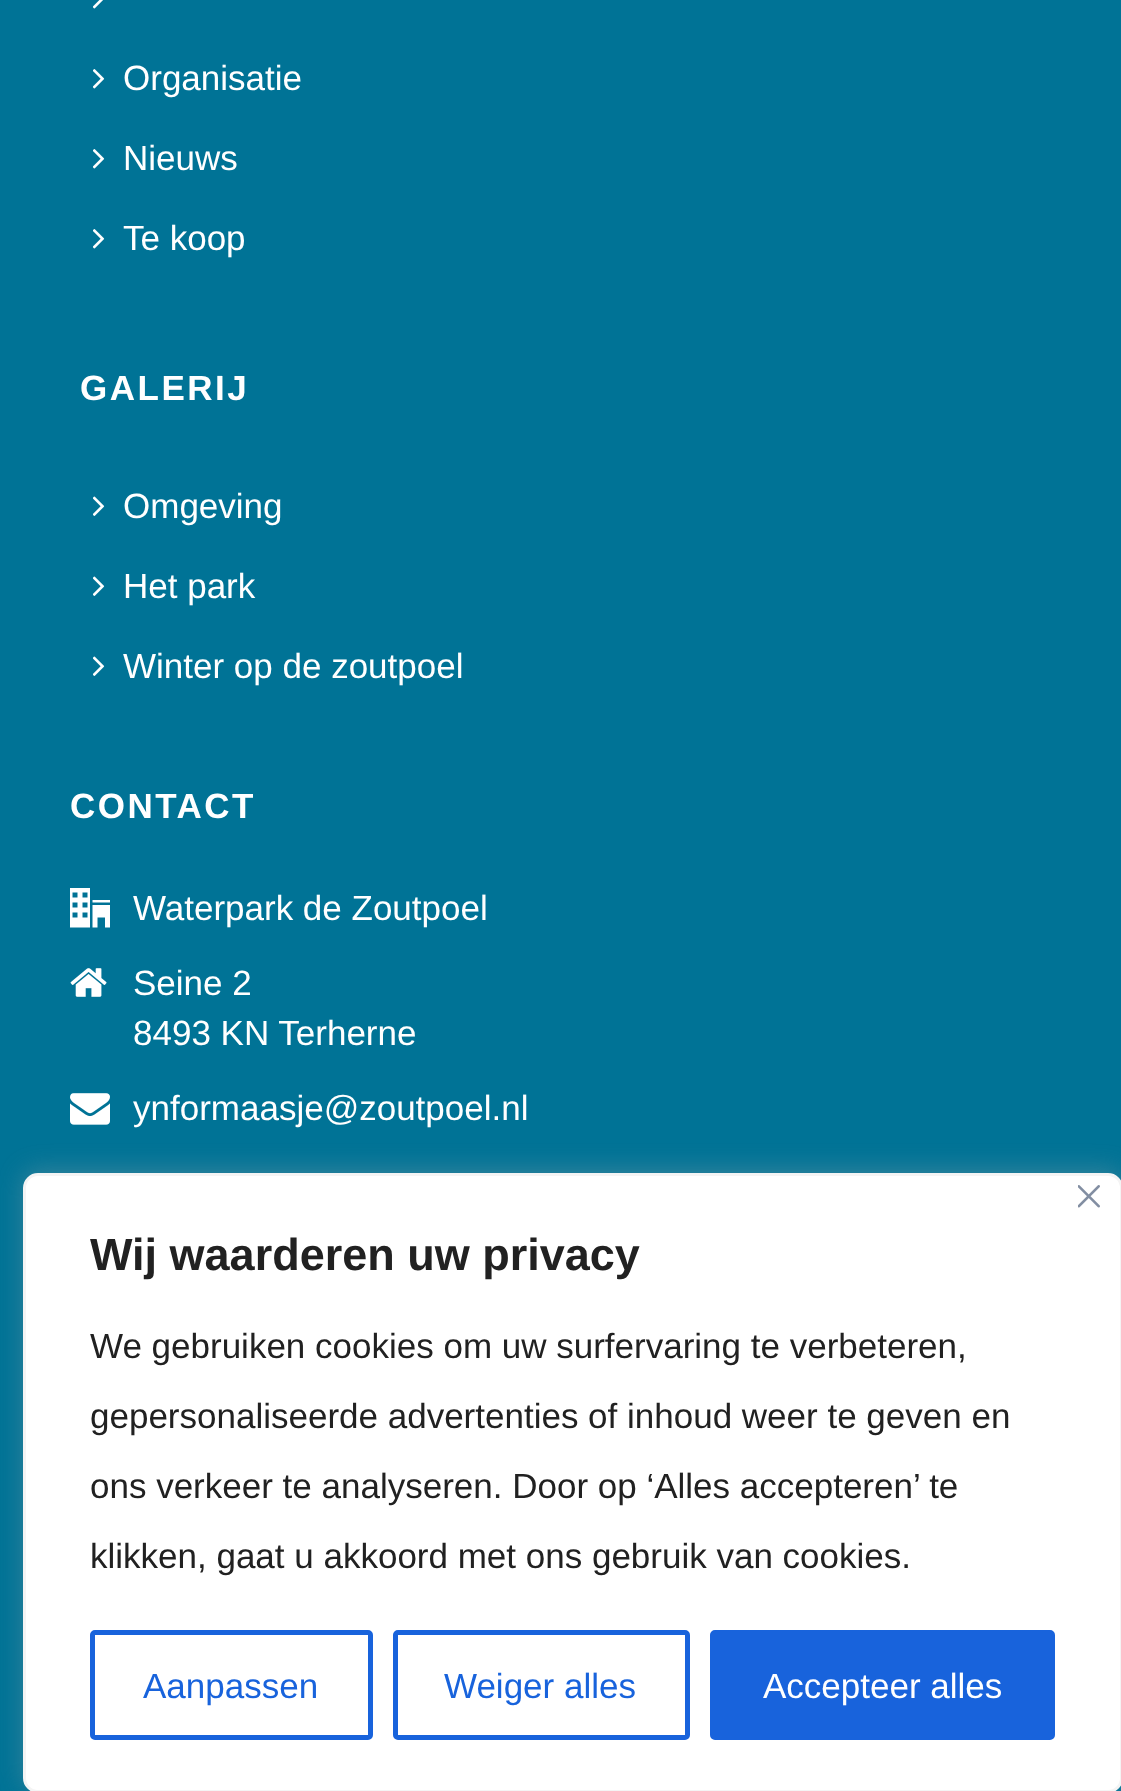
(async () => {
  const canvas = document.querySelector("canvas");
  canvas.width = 1121;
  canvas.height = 1791;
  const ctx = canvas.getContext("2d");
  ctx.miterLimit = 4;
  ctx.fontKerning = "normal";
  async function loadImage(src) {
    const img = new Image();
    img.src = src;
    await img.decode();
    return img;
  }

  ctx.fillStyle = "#007396";
  ctx.fillRect(0, 0, 1121, 1791);
  ctx.drawImage(await loadImage("img/1.png"), 93, 0, 10, 9);
  ctx.drawImage(await loadImage("img/2.png"), 93, 69, 12, 20);
  ctx.drawImage(await loadImage("img/2.png"), 93, 149, 12, 20);
  ctx.drawImage(await loadImage("img/2.png"), 93, 229, 12, 20);
  ctx.drawImage(await loadImage("img/3.png"), 93, 496, 12, 20);
  ctx.drawImage(await loadImage("img/3.png"), 93, 576, 12, 20);
  ctx.drawImage(await loadImage("img/3.png"), 93, 656, 12, 20);
  ctx.drawImage(await loadImage("img/4.png"), 70, 888, 40, 40);
  ctx.drawImage(await loadImage("img/5.png"), 70, 968, 37, 29);
  ctx.drawImage(await loadImage("img/6.png"), 70, 1093, 40, 32);
  ctx.fillStyle = "rgba(172, 171, 171, 0.3)";
  ctx.filter = "blur(12.5px)";
  ctx.beginPath();
  ctx.roundRect(23, 1170, 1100, 620, 15);
  ctx.fill();
  ctx.filter = "none";
  ctx.fillStyle = "#ffffff";
  ctx.beginPath();
  ctx.roundRect(24.5, 1174.5, 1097, 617, 13.5);
  ctx.fill();
  ctx.strokeStyle = "#f4f4f4";
  ctx.lineWidth = 3;
  ctx.stroke();
  ctx.drawImage(await loadImage("img/7.png"), 1078, 1185, 22, 23);
  ctx.beginPath();
  ctx.roundRect(92.5, 1632.5, 278, 105, 2.5);
  ctx.strokeStyle = "#1863dc";
  ctx.lineWidth = 5;
  ctx.stroke();
  ctx.beginPath();
  ctx.roundRect(395.5, 1632.5, 292, 105, 2.5);
  ctx.stroke();
  ctx.fillStyle = "#1863dc";
  ctx.beginPath();
  ctx.roundRect(712.5, 1632.5, 340, 105, 2.5);
  ctx.fill();
  ctx.stroke();
  ctx.font = "35px Liberation Sans";
  ctx.fillStyle = "#ffffff";
  for (const [text, x, y] of [
    ["Organisatie", 123, 90],
    ["Nieuws", 123, 170],
    ["Te koop", 123, 250],
  ]) {
    ctx.fillText(text, x, y);
  }
  ctx.letterSpacing = "2.5px";
  ctx.font = "bold 35px Liberation Sans";
  ctx.fillText("GALERIJ", 80, 400);
  ctx.letterSpacing = "0px";
  ctx.font = "35px Liberation Sans";
  for (const [text, x, y] of [
    ["Omgeving", 123, 518],
    ["Het park", 123, 598],
    ["Winter op de zoutpoel", 123, 678],
  ]) {
    ctx.fillText(text, x, y);
  }
  ctx.letterSpacing = "2.5px";
  ctx.font = "bold 35px Liberation Sans";
  ctx.fillText("CONTACT", 70, 818);
  ctx.letterSpacing = "0px";
  ctx.font = "35px Liberation Sans";
  for (const [text, x, y] of [
    ["Waterpark de Zoutpoel", 133, 920],
    ["Seine 2", 133, 995],
    ["8493 KN Terherne", 133, 1045],
    ["ynformaasje@zoutpoel.nl", 133, 1120],
  ]) {
    ctx.fillText(text, x, y);
  }
  ctx.font = "bold 45px Liberation Sans";
  ctx.fillStyle = "#212121";
  ctx.fillText("Wij waarderen uw privacy", 90, 1270);
  ctx.font = "35px Liberation Sans";
  for (const [text, x, y] of [
    ["We gebruiken cookies om uw surfervaring te verbeteren,", 90, 1358],
    ["gepersonaliseerde advertenties of inhoud weer te geven en", 90, 1428],
    ["ons verkeer te analyseren. Door op ‘Alles accepteren’ te", 90, 1498],
    ["klikken, gaat u akkoord met ons gebruik van cookies.", 90, 1568],
  ]) {
    ctx.fillText(text, x, y);
  }
  ctx.fillStyle = "#1863dc";
  ctx.fillText("Aanpassen", 143, 1698);
  ctx.fillText("Weiger alles", 444, 1698);
  ctx.fillStyle = "#ffffff";
  ctx.fillText("Accepteer alles", 763, 1698);
})();
